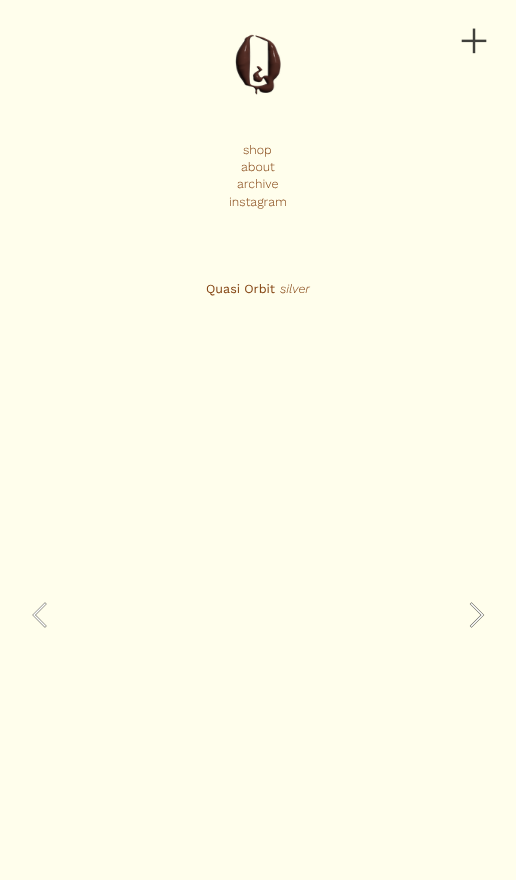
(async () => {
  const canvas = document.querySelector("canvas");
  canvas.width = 516;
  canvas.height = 880;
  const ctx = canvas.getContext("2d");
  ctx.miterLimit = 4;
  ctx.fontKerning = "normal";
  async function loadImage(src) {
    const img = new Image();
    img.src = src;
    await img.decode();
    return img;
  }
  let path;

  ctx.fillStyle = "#fffeec";
  ctx.fillRect(0, 0, 516, 880);
  ctx.drawImage(await loadImage("img/1.png"), 461, 28, 26, 26);
  ctx.drawImage(await loadImage("img/2.png"), 235, 34, 46, 61);
  path = new Path2D("M45 626L34 615L45 604");
  ctx.strokeStyle = "#66665e";
  ctx.lineWidth = 2.5;
  ctx.lineCap = "square";
  ctx.stroke(path);
  path = new Path2D("M45 626L34 615L45 604");
  ctx.strokeStyle = "#ffffff";
  ctx.lineWidth = 1.5;
  ctx.stroke(path);
  path = new Path2D("M471.5 626L482.5 615L471.5 604");
  ctx.strokeStyle = "#66665e";
  ctx.lineWidth = 2.5;
  ctx.stroke(path);
  path = new Path2D("M471.5 626L482.5 615L471.5 604");
  ctx.strokeStyle = "#ffffff";
  ctx.lineWidth = 1.5;
  ctx.stroke(path);
  ctx.font = "300 12.5px Work Sans";
  ctx.fillStyle = "#82410f";
  for (const [text, x, y] of [
    ["shop", 243, 154],
    ["about", 241, 171],
    ["archive", 237, 188],
    ["instagram", 229, 206],
  ]) {
    ctx.fillText(text, x, y);
  }
  ctx.font = "12.5px Work Sans";
  ctx.fillText("Quasi Orbit", 206, 293);
  ctx.font = "italic 300 12.5px Work Sans";
  ctx.fillText("silver", 280, 293);
})();
